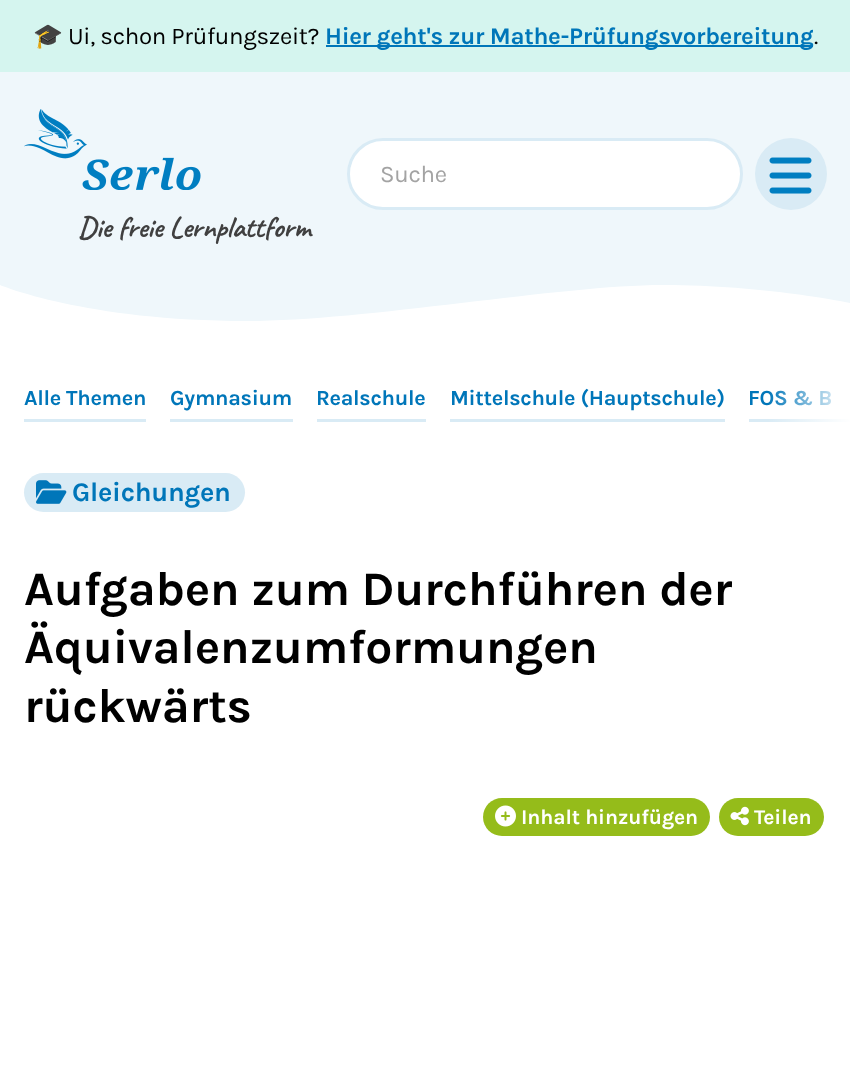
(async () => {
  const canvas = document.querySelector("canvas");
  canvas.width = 850;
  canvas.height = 1074;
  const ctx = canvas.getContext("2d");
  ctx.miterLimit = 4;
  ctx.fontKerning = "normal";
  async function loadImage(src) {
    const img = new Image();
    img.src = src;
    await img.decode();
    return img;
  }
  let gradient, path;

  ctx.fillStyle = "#ffffff";
  ctx.fillRect(0, 0, 850, 1074);
  for (const [x, y, w, h, color] of [
    [0, 0, 850, 72, "#d5f5ef"],
    [326, 45, 487, 2, "#0076b9"],
    [0, 72, 850, 249, "#eff7fb"],
  ]) {
    ctx.fillStyle = color;
    ctx.fillRect(x, y, w, h);
  }
  ctx.fillStyle = "#ffffff";
  path = new Path2D("M0 285C0 285 85 321 247 321C366 321 561 285 663 285C765 285 850 303 850 303V339H0Z");
  ctx.fill(path);
  ctx.beginPath();
  ctx.roundRect(348.5, 139.5, 393, 69, 34.5);
  ctx.fill();
  ctx.strokeStyle = "#d9ebf5";
  ctx.lineWidth = 3;
  ctx.stroke();
  ctx.fillStyle = "#d9ebf5";
  ctx.beginPath();
  ctx.arc(791, 174, 36, 0, Math.PI * 2);
  ctx.fill();
  ctx.drawImage(await loadImage("img/1.png"), 769, 157, 43, 37);
  ctx.drawImage(await loadImage("img/2.png"), 24, 109, 177, 81);
  for (const [x, y, w, h, color] of [
    [24, 419, 122, 3, "#d9ebf5"],
    [170, 419, 123, 3, "#d9ebf5"],
    [317, 419, 109, 3, "#d9ebf5"],
    [450, 419, 275, 3, "#d9ebf5"],
    [749, 419, 101, 3, "#d9ebf5"],
  ]) {
    ctx.fillStyle = color;
    ctx.fillRect(x, y, w, h);
  }
  ctx.beginPath();
  ctx.roundRect(24, 473, 221, 39, 19.5);
  ctx.fill();
  ctx.drawImage(await loadImage("img/3.png"), 36, 480, 31, 24);
  ctx.fillStyle = "#95bc1a";
  ctx.beginPath();
  ctx.roundRect(483, 798, 227, 38, 19);
  ctx.fill();
  ctx.drawImage(await loadImage("img/4.png"), 495, 805, 21, 22);
  ctx.beginPath();
  ctx.roundRect(719, 798, 105, 38, 19);
  ctx.fill();
  ctx.drawImage(await loadImage("img/5.png"), 730, 806, 19, 20);
  ctx.letterSpacing = "-0.3px";
  ctx.font = "24px Noto Color Emoji";
  ctx.fillStyle = "#000000";
  ctx.fillText("🎓", 33, 44);
  ctx.font = "24px Karla";
  ctx.fillText("Ui, schon Prüfungszeit?", 68, 44);
  ctx.font = "bold 24px Karla";
  ctx.fillStyle = "#0076b9";
  ctx.fillText("Hier geht's zur Mathe-Prüfungsvorbereitung", 325, 44);
  ctx.font = "24px Karla";
  ctx.fillStyle = "#000000";
  ctx.fillText(".", 814, 44);
  ctx.fillStyle = "#a3a3a3";
  ctx.fillText("Suche", 380, 182);
  ctx.font = "bold 30px Caveat";
  ctx.fillStyle = "#404040";
  ctx.fillText("Die freie Lernplattform", 78, 237);
  ctx.font = "bold 21.6px Karla";
  ctx.fillStyle = "#0076b9";
  for (const [text, x, y] of [
    ["Alle Themen", 24, 405],
    ["Gymnasium", 170, 405],
    ["Realschule", 316, 405],
    ["Mittelschule (Hauptschule)", 450, 405],
    ["FOS & B", 748, 405],
  ]) {
    ctx.fillText(text, x, y);
  }
  gradient = ctx.createLinearGradient(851, 387, 767, 387);
  gradient.addColorStop(0, "#ffffff");
  gradient.addColorStop(1, "rgba(255, 255, 255, 0)");
  ctx.fillStyle = gradient;
  ctx.fillRect(769, 390, 81, 32);
  ctx.letterSpacing = "-0.25px";
  ctx.font = "bold 27px Karla";
  ctx.fillStyle = "#0076b9";
  ctx.fillText("Gleichungen", 72, 501);
  ctx.letterSpacing = "-0.3px";
  ctx.font = "bold 48px Karla";
  ctx.fillStyle = "#000000";
  for (const [text, x, y] of [
    ["Aufgaben zum Durchführen der", 24, 605],
    ["Äquivalenzumformungen", 24, 663],
    ["rückwärts", 24, 722],
  ]) {
    ctx.fillText(text, x, y);
  }
  ctx.letterSpacing = "-0.1px";
  ctx.font = "bold 21px Karla";
  ctx.fillStyle = "#ffffff";
  ctx.fillText("Inhalt hinzufügen", 521, 824);
  ctx.fillText("Teilen", 754, 824);
})();
